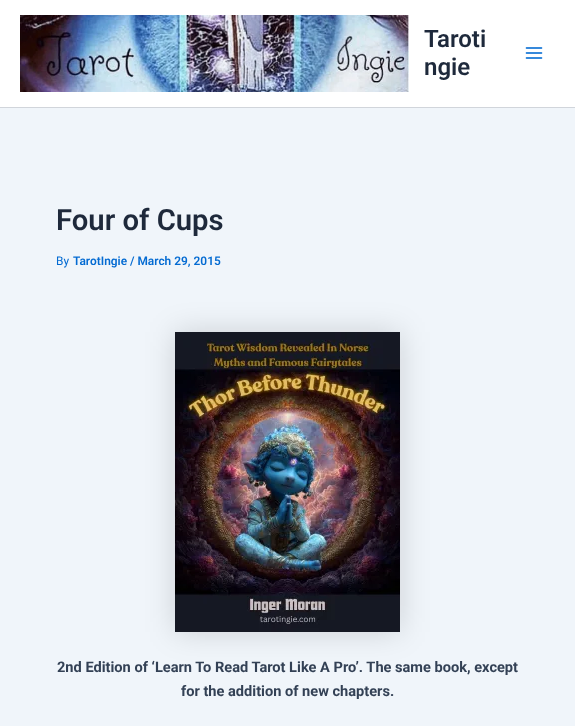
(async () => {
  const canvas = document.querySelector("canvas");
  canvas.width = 575;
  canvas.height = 726;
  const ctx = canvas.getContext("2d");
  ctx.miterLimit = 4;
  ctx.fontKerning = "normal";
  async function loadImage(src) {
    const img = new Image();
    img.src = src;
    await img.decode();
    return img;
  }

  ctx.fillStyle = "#f0f5fa";
  ctx.fillRect(0, 0, 575, 726);
  ctx.fillStyle = "#ffffff";
  ctx.fillRect(0, 0, 575, 107);
  ctx.fillStyle = "#d1d5db";
  ctx.fillRect(0, 107, 575, 1);
  ctx.drawImage(await loadImage("img/1.png"), 20, 15, 389, 77);
  ctx.drawImage(await loadImage("img/2.png"), 525, 47, 18, 12);
  ctx.fillStyle = "rgba(0, 0, 0, 0.15)";
  ctx.filter = "blur(15px)";
  ctx.beginPath();
  ctx.rect(175, 332, 225, 300);
  ctx.fill();
  ctx.filter = "none";
  ctx.drawImage(await loadImage("img/3.png"), 175, 332, 225, 300);
  ctx.font = "600 24px Roboto";
  ctx.fillStyle = "#1e293b";
  ctx.fillText("Taroti", 424, 47);
  ctx.fillText("ngie", 424, 75);
  ctx.font = "600 29.25px Roboto";
  ctx.fillText("Four of Cups", 56, 230);
  ctx.font = "11.9px Roboto";
  ctx.fillStyle = "#046bd2";
  ctx.fillText("By", 56, 265);
  ctx.font = "600 11.9px Roboto";
  ctx.fillText("TarotIngie / March 29, 2015", 73, 265);
  ctx.font = "bold 14.6px Roboto";
  ctx.fillStyle = "#334155";
  ctx.fillText("2nd Edition of ‘Learn To Read Tarot Like A Pro’. The same book, except", 57, 672);
  ctx.fillText("for the addition of new chapters.", 181, 696);
})();
